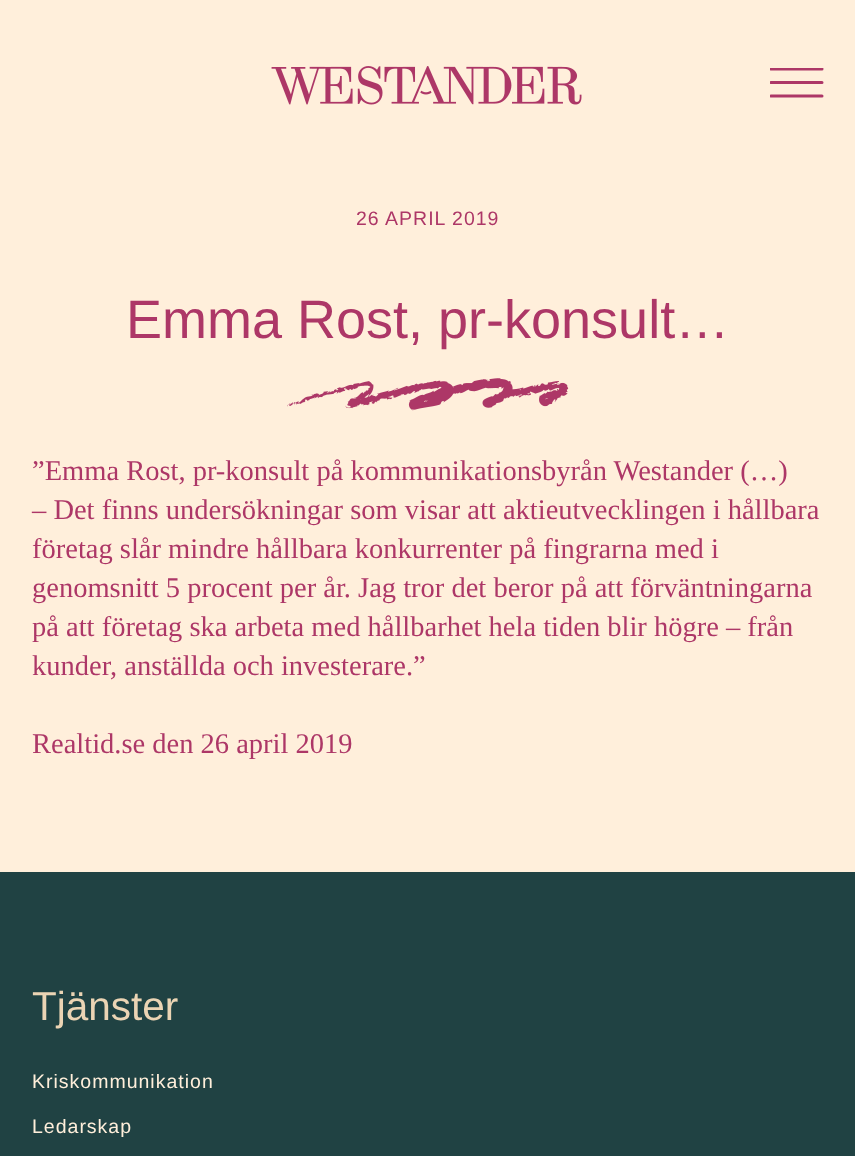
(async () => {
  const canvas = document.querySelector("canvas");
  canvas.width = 855;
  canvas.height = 1156;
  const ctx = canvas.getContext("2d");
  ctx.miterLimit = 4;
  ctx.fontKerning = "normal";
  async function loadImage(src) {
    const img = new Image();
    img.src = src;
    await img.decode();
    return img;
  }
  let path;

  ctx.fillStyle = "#ffefdb";
  ctx.fillRect(0, 0, 855, 1156);
  ctx.drawImage(await loadImage("img/1.png"), 271, 66, 311, 39);
  ctx.save();
  ctx.beginPath();
  ctx.rect(770, 68, 54, 30);
  ctx.clip();
  path = new Path2D("M771 69H822M771 82.5H822M771 96H822");
  ctx.strokeStyle = "#ad3767";
  ctx.lineWidth = 3;
  ctx.lineCap = "round";
  ctx.stroke(path);
  ctx.restore();
  ctx.drawImage(await loadImage("img/2.png"), 287, 378, 282, 33);
  ctx.fillStyle = "#204243";
  ctx.fillRect(0, 872, 855, 284);
  ctx.letterSpacing = "1px";
  ctx.font = "19.5px Liberation Sans";
  ctx.fillStyle = "#ad3767";
  ctx.fillText("26 APRIL 2019", 356, 225);
  ctx.letterSpacing = "0px";
  ctx.font = "54px Liberation Sans";
  ctx.fillText("Emma Rost, pr-konsult…", 126, 338);
  ctx.font = "28.5px Liberation Serif";
  for (const [text, x, y] of [
    ["”Emma Rost, pr-konsult på kommunikationsbyrån Westander (…)", 32, 480],
    ["– Det finns undersökningar som visar att aktieutvecklingen i hållbara", 32, 519],
    ["företag slår mindre hållbara konkurrenter på fingrarna med i", 32, 558],
    ["genomsnitt 5 procent per år. Jag tror det beror på att förväntningarna", 32, 597],
    ["på att företag ska arbeta med hållbarhet hela tiden blir högre – från", 32, 636],
    ["kunder, anställda och investerare.”", 32, 675],
    ["Realtid.se den 26 april 2019", 32, 753],
  ]) {
    ctx.fillText(text, x, y);
  }
  ctx.font = "40.5px Liberation Sans";
  ctx.fillStyle = "#ebd4b4";
  ctx.fillText("Tjänster", 32, 1020);
  ctx.letterSpacing = "1px";
  ctx.font = "19.5px Liberation Sans";
  ctx.fillStyle = "#ffefdb";
  ctx.fillText("Kriskommunikation", 32, 1088);
  ctx.fillText("Ledarskap", 32, 1133);
})();
